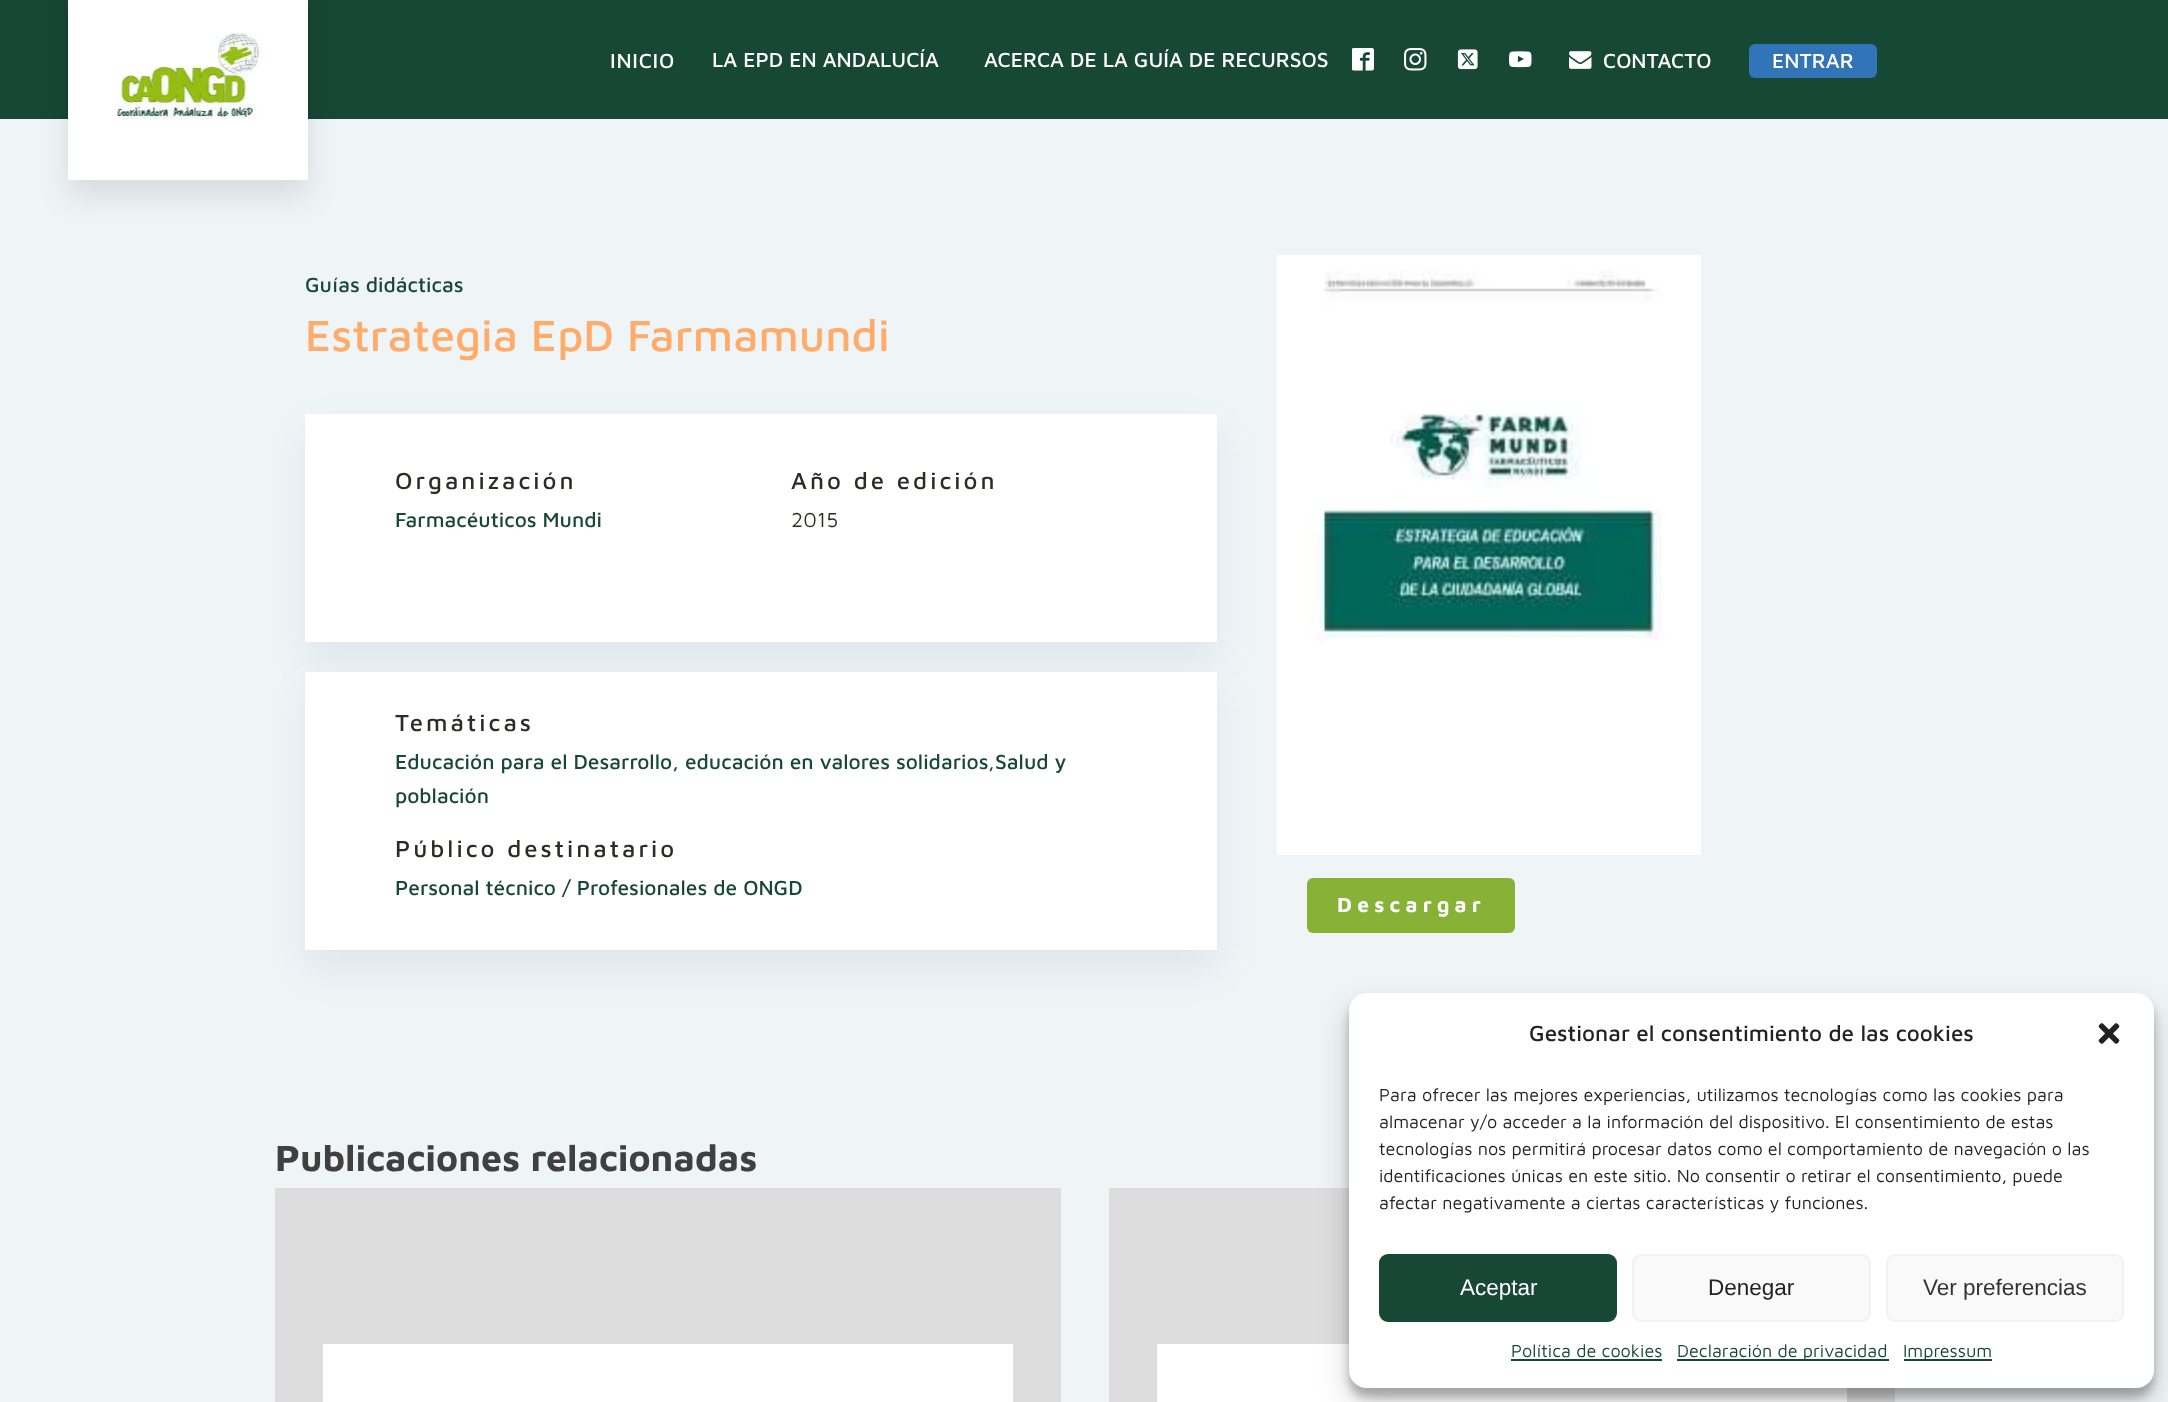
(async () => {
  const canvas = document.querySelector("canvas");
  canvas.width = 2168;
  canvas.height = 1402;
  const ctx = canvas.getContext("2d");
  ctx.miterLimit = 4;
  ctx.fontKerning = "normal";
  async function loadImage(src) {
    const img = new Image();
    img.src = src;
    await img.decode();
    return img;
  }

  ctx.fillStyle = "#eff4f7";
  ctx.fillRect(0, 0, 2168, 1402);
  ctx.fillStyle = "#174735";
  ctx.fillRect(0, 0, 2168, 119);
  ctx.fillStyle = "rgba(0, 0, 0, 0.1)";
  ctx.filter = "blur(15px)";
  ctx.beginPath();
  ctx.rect(68, -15, 240, 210);
  ctx.fill();
  ctx.filter = "none";
  ctx.fillStyle = "#ffffff";
  ctx.fillRect(68, 0, 240, 180);
  ctx.drawImage(await loadImage("img/1.png"), 117, 32, 145, 87);
  ctx.drawImage(await loadImage("img/2.png"), 1352, 48, 22, 23);
  ctx.drawImage(await loadImage("img/3.png"), 1404, 48, 23, 23);
  ctx.drawImage(await loadImage("img/4.png"), 1457, 49, 21, 21);
  ctx.drawImage(await loadImage("img/5.png"), 1509, 51, 23, 17);
  ctx.drawImage(await loadImage("img/6.png"), 1569, 51, 23, 18);
  ctx.fillStyle = "#3174b7";
  ctx.beginPath();
  ctx.roundRect(1749, 44, 128, 34, 6);
  ctx.fill();
  ctx.fillStyle = "rgba(86, 109, 143, 0.1)";
  ctx.filter = "blur(18px)";
  ctx.beginPath();
  ctx.rect(305, 432, 912, 228);
  ctx.fill();
  ctx.filter = "none";
  ctx.fillStyle = "#ffffff";
  ctx.fillRect(305, 414, 912, 228);
  ctx.fillStyle = "rgba(86, 109, 143, 0.1)";
  ctx.filter = "blur(18px)";
  ctx.beginPath();
  ctx.rect(305, 690, 912, 278);
  ctx.fill();
  ctx.filter = "none";
  ctx.fillStyle = "#ffffff";
  ctx.fillRect(305, 672, 912, 278);
  ctx.drawImage(await loadImage("img/7.png"), 1276, 255, 425, 600);
  ctx.fillStyle = "#88b137";
  ctx.beginPath();
  ctx.roundRect(1307, 878, 208, 55, 6);
  ctx.fill();
  for (const [x, y, w, h, color] of [
    [275, 1188, 786, 214, "#dddddd"],
    [323, 1344, 690, 58, "#ffffff"],
    [1109, 1188, 786, 214, "#dddddd"],
    [1157, 1344, 690, 58, "#ffffff"],
  ]) {
    ctx.fillStyle = color;
    ctx.fillRect(x, y, w, h);
  }
  ctx.fillStyle = "rgba(0, 0, 0, 0.23)";
  ctx.filter = "blur(4.5px)";
  ctx.beginPath();
  ctx.roundRect(1349, 1002, 805, 395, 18);
  ctx.fill();
  ctx.filter = "none";
  ctx.fillStyle = "rgba(0, 0, 0, 0.19)";
  ctx.filter = "blur(15px)";
  ctx.beginPath();
  ctx.roundRect(1349, 1008, 805, 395, 18);
  ctx.fill();
  ctx.filter = "none";
  ctx.fillStyle = "#ffffff";
  ctx.beginPath();
  ctx.roundRect(1349, 993, 805, 395, 18);
  ctx.fill();
  ctx.drawImage(await loadImage("img/8.png"), 2098, 1023, 22, 21);
  ctx.fillStyle = "#174735";
  ctx.beginPath();
  ctx.roundRect(1380, 1255, 236, 66, 8);
  ctx.fill();
  ctx.strokeStyle = "#174735";
  ctx.lineWidth = 2;
  ctx.stroke();
  ctx.fillStyle = "#f9f9f9";
  ctx.beginPath();
  ctx.roundRect(1633, 1255, 237, 66, 8);
  ctx.fill();
  ctx.strokeStyle = "#f2f2f2";
  ctx.stroke();
  ctx.beginPath();
  ctx.roundRect(1887, 1255, 236, 66, 8);
  ctx.fill();
  ctx.stroke();
  for (const [x, y, w, h, color] of [
    [1511, 1359, 151, 2, "#174735"],
    [1677, 1359, 212, 2, "#174735"],
    [1904, 1359, 88, 2, "#174735"],
  ]) {
    ctx.fillStyle = color;
    ctx.fillRect(x, y, w, h);
  }
  ctx.letterSpacing = "0.75px";
  ctx.font = "500 21px Maven Pro";
  ctx.fillStyle = "#ffffff";
  ctx.fillText("INICIO", 610, 68);
  ctx.letterSpacing = "0px";
  for (const [text, x, y] of [
    ["LA EPD EN ANDALUCÍA", 712, 67],
    ["ACERCA DE LA GUÍA DE RECURSOS", 984, 67],
    ["CONTACTO", 1603, 68],
    ["ENTRAR", 1772, 68],
  ]) {
    ctx.fillText(text, x, y);
  }
  ctx.fillStyle = "#174735";
  ctx.fillText("Guías didácticas", 305, 292);
  ctx.font = "500 45px Maven Pro";
  ctx.fillStyle = "#ffab6a";
  ctx.fillText("Estrategia EpD Farmamundi", 305, 351);
  ctx.letterSpacing = "3px";
  ctx.font = "500 24px Maven Pro";
  ctx.fillStyle = "#2b2c26";
  ctx.fillText("Organización", 395, 489);
  ctx.letterSpacing = "0px";
  ctx.font = "500 21px Maven Pro";
  ctx.fillStyle = "#174735";
  ctx.fillText("Farmacéuticos Mundi", 395, 527);
  ctx.letterSpacing = "3px";
  ctx.font = "500 24px Maven Pro";
  ctx.fillStyle = "#2b2c26";
  ctx.fillText("Año de edición", 791, 489);
  ctx.letterSpacing = "0px";
  ctx.font = "21px Maven Pro";
  ctx.fillText("2015", 791, 527);
  ctx.letterSpacing = "3px";
  ctx.font = "500 24px Maven Pro";
  ctx.fillText("Temáticas", 395, 731);
  ctx.letterSpacing = "0px";
  ctx.font = "500 21px Maven Pro";
  ctx.fillStyle = "#174735";
  ctx.fillText("Educación para el Desarrollo, educación en valores solidarios", 395, 769);
  ctx.font = "21px Maven Pro";
  ctx.fillStyle = "#2b2c26";
  ctx.fillText(",", 988, 769);
  ctx.font = "500 21px Maven Pro";
  ctx.fillStyle = "#174735";
  ctx.fillText("Salud y", 995, 769);
  ctx.fillText("población", 395, 803);
  ctx.letterSpacing = "3px";
  ctx.font = "500 24px Maven Pro";
  ctx.fillStyle = "#2b2c26";
  ctx.fillText("Público destinatario", 395, 857);
  ctx.letterSpacing = "0px";
  ctx.font = "500 21px Maven Pro";
  ctx.fillStyle = "#174735";
  ctx.fillText("Personal técnico / Profesionales de ONGD", 395, 895);
  ctx.letterSpacing = "5.25px";
  ctx.font = "bold 21px Maven Pro";
  ctx.fillStyle = "#ffffff";
  ctx.fillText("Descargar", 1337, 912);
  ctx.letterSpacing = "0px";
  ctx.font = "bold 37.5px Maven Pro";
  ctx.fillStyle = "#404040";
  ctx.fillText("Publicaciones relacionadas", 275, 1171);
  ctx.font = "500 22.5px Maven Pro";
  ctx.fillStyle = "#222222";
  ctx.fillText("Gestionar el consentimiento de las cookies", 1529, 1041);
  ctx.font = "18px Maven Pro";
  for (const [text, x, y] of [
    ["Para ofrecer las mejores experiencias, utilizamos tecnologías como las cookies para", 1379, 1101],
    ["almacenar y/o acceder a la información del dispositivo. El consentimiento de estas", 1379, 1128],
    ["tecnologías nos permitirá procesar datos como el comportamiento de navegación o las", 1379, 1155],
    ["identificaciones únicas en este sitio. No consentir o retirar el consentimiento, puede", 1379, 1182],
    ["afectar negativamente a ciertas características y funciones.", 1379, 1209],
  ]) {
    ctx.fillText(text, x, y);
  }
  ctx.font = "22.5px Liberation Sans";
  ctx.fillStyle = "#ffffff";
  ctx.fillText("Aceptar", 1460, 1295);
  ctx.fillStyle = "#222222";
  ctx.fillText("Denegar", 1708, 1295);
  ctx.fillStyle = "#333333";
  ctx.fillText("Ver preferencias", 1923, 1295);
  ctx.font = "18px Maven Pro";
  ctx.fillStyle = "#174735";
  for (const [text, x, y] of [
    ["Política de cookies", 1511, 1357],
    ["Declaración de privacidad", 1677, 1357],
    ["Impressum", 1903, 1357],
  ]) {
    ctx.fillText(text, x, y);
  }
})();
